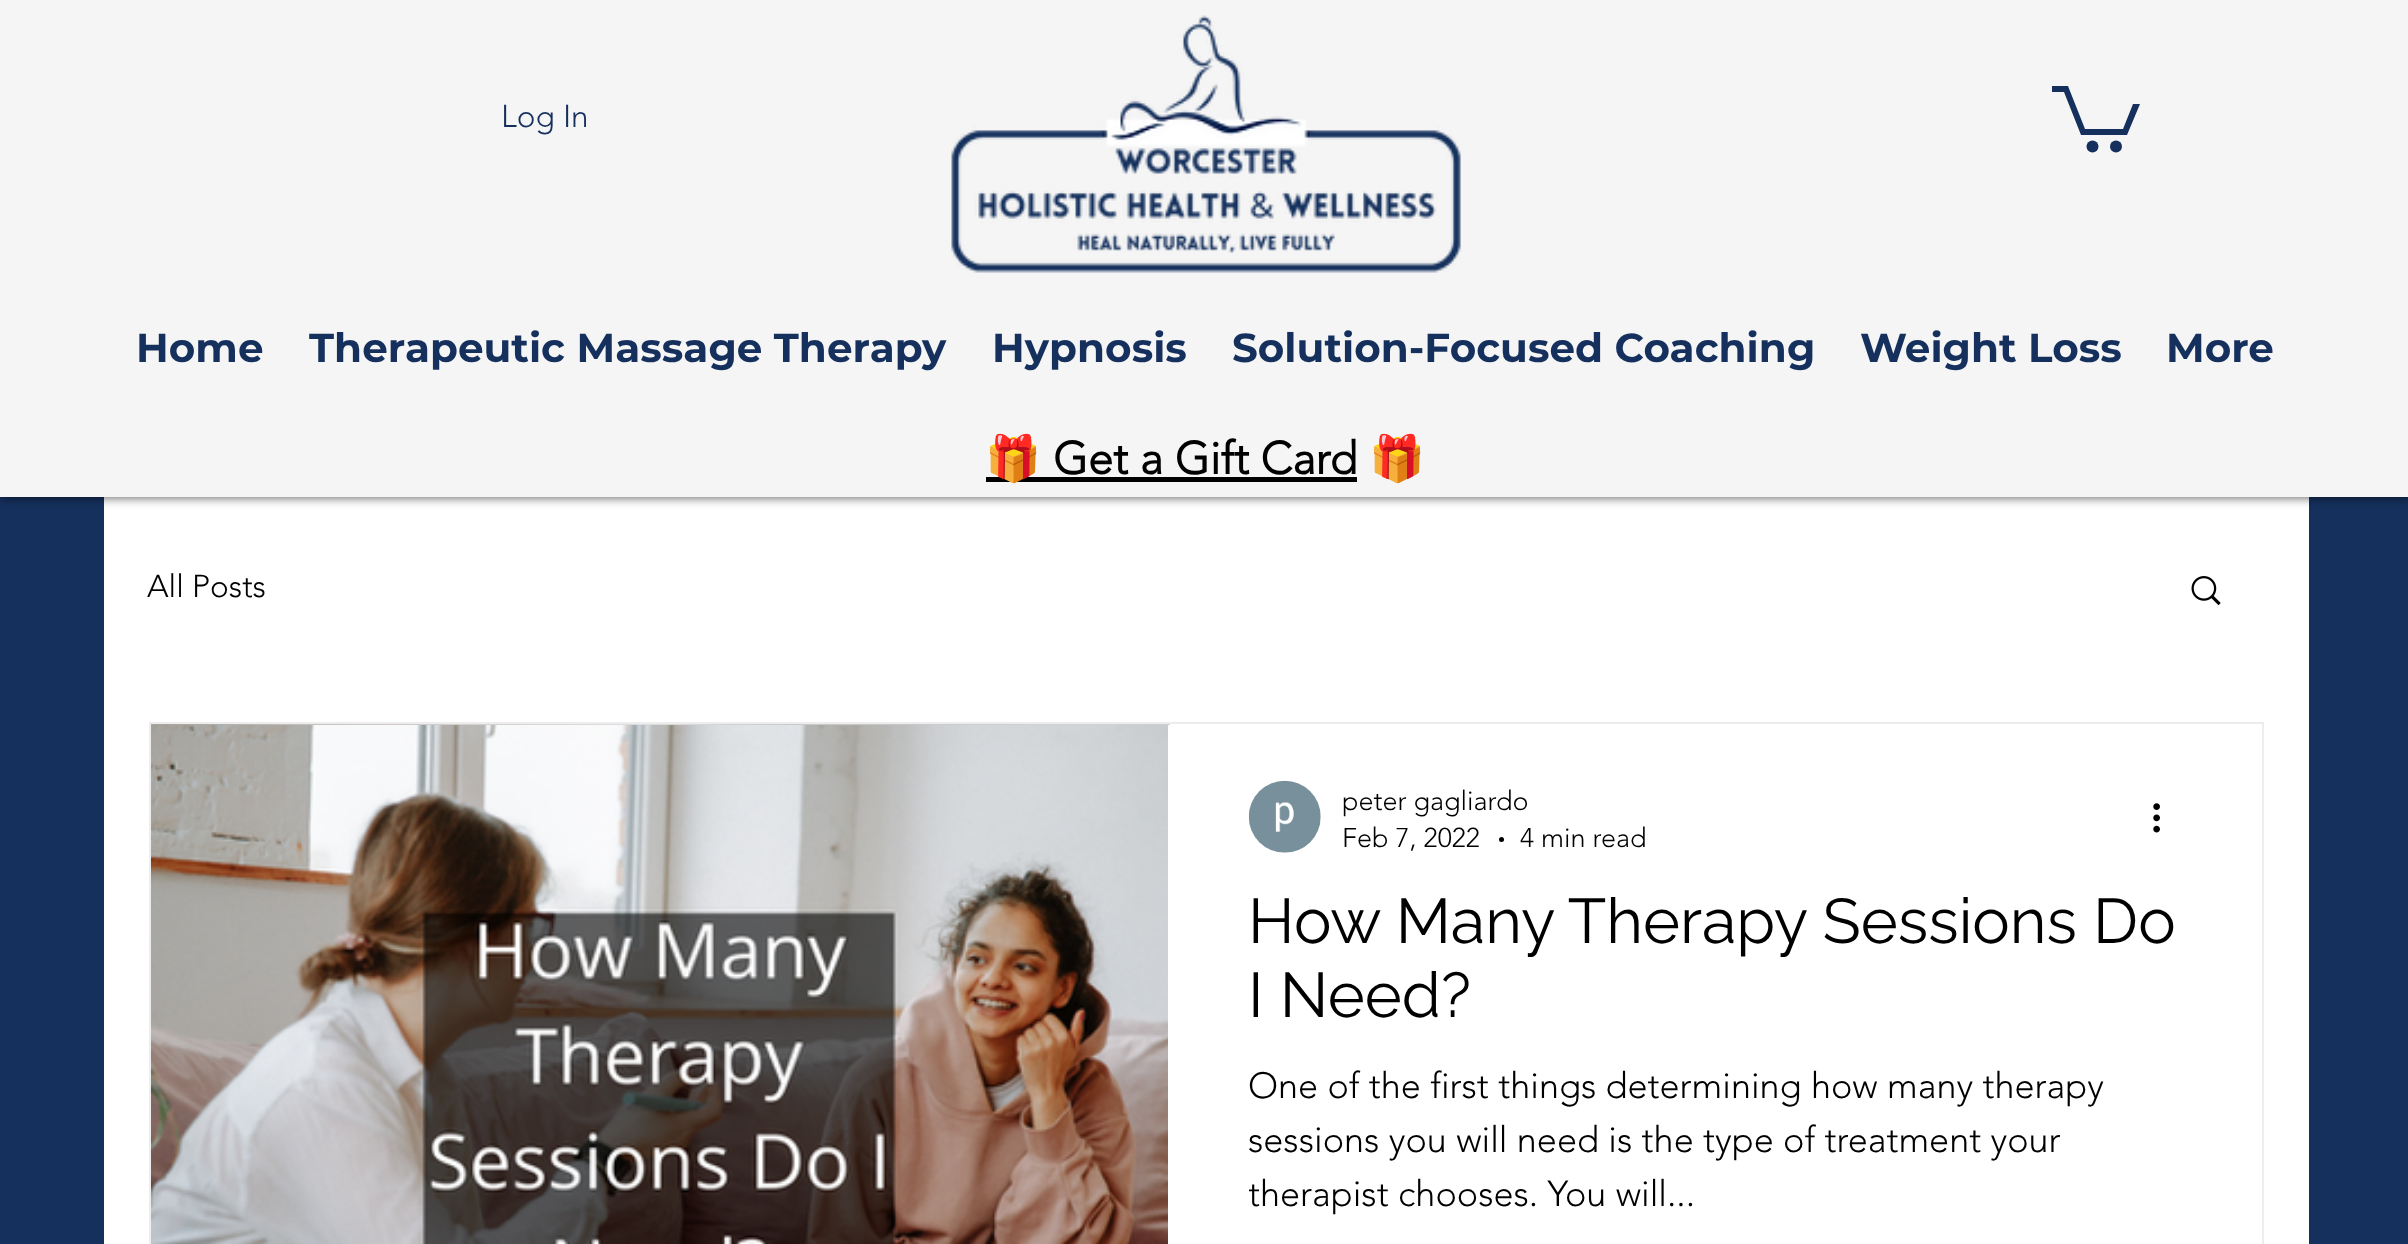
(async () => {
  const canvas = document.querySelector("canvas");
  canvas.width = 2408;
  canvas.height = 1244;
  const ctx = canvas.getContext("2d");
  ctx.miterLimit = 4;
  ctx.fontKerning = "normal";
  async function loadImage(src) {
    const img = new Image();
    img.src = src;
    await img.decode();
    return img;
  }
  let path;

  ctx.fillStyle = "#15305d";
  ctx.fillRect(0, 0, 2408, 1244);
  ctx.fillStyle = "#ffffff";
  ctx.fillRect(104, 497, 2205, 747);
  ctx.fillStyle = "rgba(0, 0, 0, 0.7)";
  ctx.filter = "blur(5.5px)";
  ctx.beginPath();
  ctx.rect(0, 0, 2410, 497);
  ctx.fill();
  ctx.filter = "none";
  ctx.fillStyle = "#f5f5f5";
  ctx.fillRect(0, 0, 2408, 497);
  ctx.drawImage(await loadImage("img/1.png"), 951, 15, 510, 258);
  ctx.fillStyle = "#15305d";
  path = new Path2D("M2140 104L2127 135H2081L2064 92H2052V86H2068L2085 129H2123L2133 104");
  ctx.fill(path);
  ctx.beginPath();
  ctx.arc(2116, 146.5, 6, 0, Math.PI * 2);
  ctx.fill();
  ctx.beginPath();
  ctx.arc(2092.5, 146.5, 6, 0, Math.PI * 2);
  ctx.fill();
  ctx.fillStyle = "#000000";
  ctx.fillRect(986, 477, 371, 5);
  ctx.drawImage(await loadImage("img/2.png"), 2191, 576, 30, 29);
  ctx.strokeStyle = "#eeecec";
  ctx.lineWidth = 2;
  ctx.strokeRect(150, 723, 2113, 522);
  ctx.drawImage(await loadImage("img/3.png"), 151, 724, 1019, 1);
  ctx.drawImage(await loadImage("img/4.png"), 151, 725, 1017, 519);
  ctx.drawImage(await loadImage("img/5.png"), 1248, 780, 73, 73);
  ctx.beginPath();
  ctx.arc(1501.5, 839.5, 2.5, 0, Math.PI * 2);
  ctx.fill();
  ctx.drawImage(await loadImage("img/6.png"), 2153, 803, 7, 30);
  ctx.font = "300 31.5px 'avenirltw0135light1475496'";
  ctx.fillStyle = "#15305d";
  ctx.fillText("Log In", 501, 127);
  ctx.font = "bold 40.5px Montserrat";
  for (const [text, x, y] of [
    ["Home", 136, 362],
    ["Therapeutic Massage Therapy", 309, 362],
    ["Hypnosis", 992, 362],
    ["Solution-Focused Coaching", 1232, 362],
    ["Weight Loss", 1860, 362],
    ["More", 2166, 362],
  ]) {
    ctx.fillText(text, x, y);
  }
  ctx.font = "bold 45px Noto Color Emoji";
  ctx.fillStyle = "#000000";
  ctx.fillText("🎁", 985, 474);
  ctx.font = "bold 45px 'avenirltw0135light1475496'";
  ctx.fillText("Get a Gift Card", 1053, 474);
  ctx.font = "bold 45px Noto Color Emoji";
  ctx.fillText("🎁", 1369, 474);
  ctx.font = "300 31.5px 'avenirltw0135light1475496'";
  ctx.fillText("All Posts", 147, 597);
  ctx.font = "300 27px 'avenirltw0135light1475496'";
  for (const [text, x, y] of [
    ["peter gagliardo", 1342, 810],
    ["Feb 7, 2022", 1342, 847],
    ["4 min read", 1520, 847],
  ]) {
    ctx.fillText(text, x, y);
  }
  ctx.font = "63px Raleway";
  ctx.fillText("How Many Therapy Sessions Do", 1248, 943);
  ctx.fillText("I Need?", 1248, 1017);
  ctx.font = "300 36px 'avenirltw0135light1475496'";
  ctx.fillText("One of the first things determining how many therapy", 1248, 1098);
  ctx.fillText("sessions you will need is the type of treatment your", 1248, 1152);
  ctx.save();
  ctx.beginPath();
  ctx.rect(1249, 1060, 931, 162);
  ctx.clip();
  ctx.fillText("therapist chooses. You will...", 1248, 1206);
  ctx.restore();
})();
